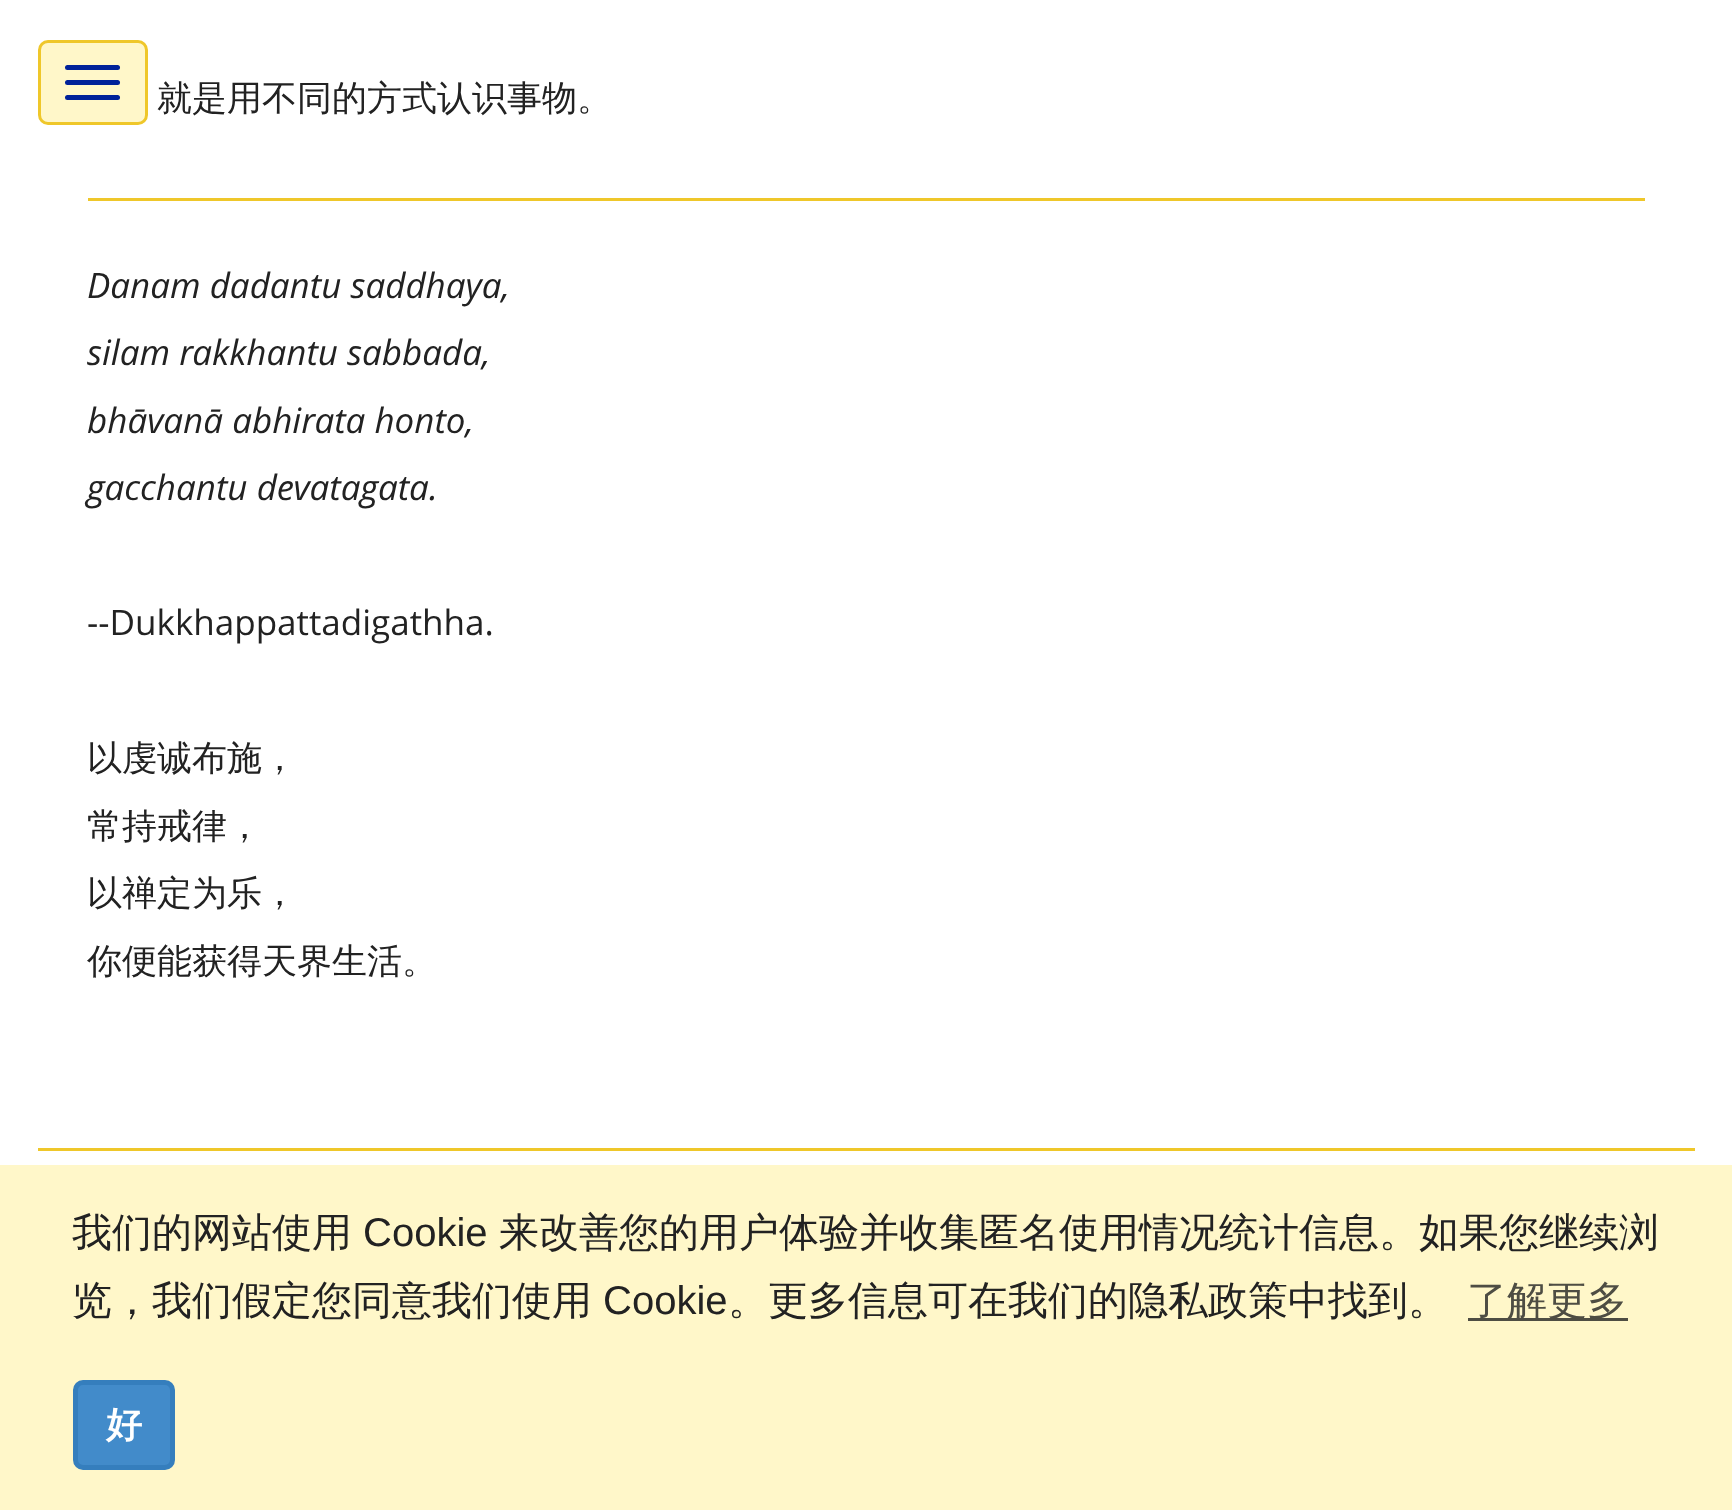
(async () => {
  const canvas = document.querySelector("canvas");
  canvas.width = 1732;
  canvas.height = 1510;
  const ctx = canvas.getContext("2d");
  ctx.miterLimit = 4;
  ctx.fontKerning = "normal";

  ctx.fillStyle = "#ffffff";
  ctx.fillRect(0, 0, 1732, 1510);
  ctx.fillStyle = "#fff7c9";
  ctx.beginPath();
  ctx.roundRect(39.5, 41.5, 107, 82, 8.5);
  ctx.fill();
  ctx.strokeStyle = "#efc72a";
  ctx.lineWidth = 3;
  ctx.stroke();
  ctx.fillStyle = "#002299";
  ctx.beginPath();
  ctx.roundRect(65, 65, 55, 5, 2.5);
  ctx.fill();
  ctx.beginPath();
  ctx.roundRect(65, 80, 55, 5, 2.5);
  ctx.fill();
  ctx.beginPath();
  ctx.roundRect(65, 95, 55, 5, 2.5);
  ctx.fill();
  for (const [x, y, w, h, color] of [
    [88, 198, 1557, 3, "#efc72a"],
    [38, 1148, 1657, 3, "#efc72a"],
    [0, 1165, 1732, 345, "#fff7c9"],
    [1468, 1318, 160, 3, "#4e4d43"],
  ]) {
    ctx.fillStyle = color;
    ctx.fillRect(x, y, w, h);
  }
  ctx.fillStyle = "#428bca";
  ctx.beginPath();
  ctx.roundRect(75.5, 1382.5, 97, 85, 7.5);
  ctx.fill();
  ctx.strokeStyle = "#357ebd";
  ctx.lineWidth = 5;
  ctx.stroke();
  ctx.font = "500 35px WenQuanYi Zen Hei";
  ctx.fillStyle = "#222222";
  ctx.fillText("就是用不同的方式认识事物。", 157, 110);
  ctx.font = "italic 35px Open Sans";
  for (const [text, x, y] of [
    ["Danam dadantu saddhaya,", 87, 298],
    ["silam rakkhantu sabbada,", 87, 365],
    ["bhāvanā abhirata honto,", 87, 433],
    ["gacchantu devatagata.", 87, 500],
  ]) {
    ctx.fillText(text, x, y);
  }
  ctx.font = "35px Open Sans";
  ctx.fillText("--Dukkhappattadigathha.", 87, 635);
  ctx.font = "500 35px WenQuanYi Zen Hei";
  for (const [text, x, y] of [
    ["以虔诚布施，", 87, 770],
    ["常持戒律，", 87, 838],
    ["以禅定为乐，", 87, 905],
    ["你便能获得天界生活。", 87, 973],
  ]) {
    ctx.fillText(text, x, y);
  }
  ctx.font = "500 40px WenQuanYi Zen Hei";
  ctx.fillText("我们的网站使用", 72, 1246);
  ctx.font = "40px Liberation Sans";
  ctx.fillText("Cookie", 363, 1246);
  ctx.font = "500 40px WenQuanYi Zen Hei";
  ctx.fillText("来改善您的用户体验并收集匿名使用情况统计信息。如果您继续浏", 499, 1246);
  ctx.fillText("览，我们假定您同意我们使用", 72, 1314);
  ctx.font = "40px Liberation Sans";
  ctx.fillText("Cookie", 603, 1314);
  ctx.font = "500 40px WenQuanYi Zen Hei";
  ctx.fillText("。更多信息可在我们的隐私政策中找到。", 728, 1314);
  ctx.fillStyle = "#4e4d43";
  ctx.fillText("了解更多", 1467, 1314);
  ctx.font = "bold 36px WenQuanYi Zen Hei";
  ctx.fillStyle = "#ffffff";
  ctx.fillText("好", 106, 1437);
})();
